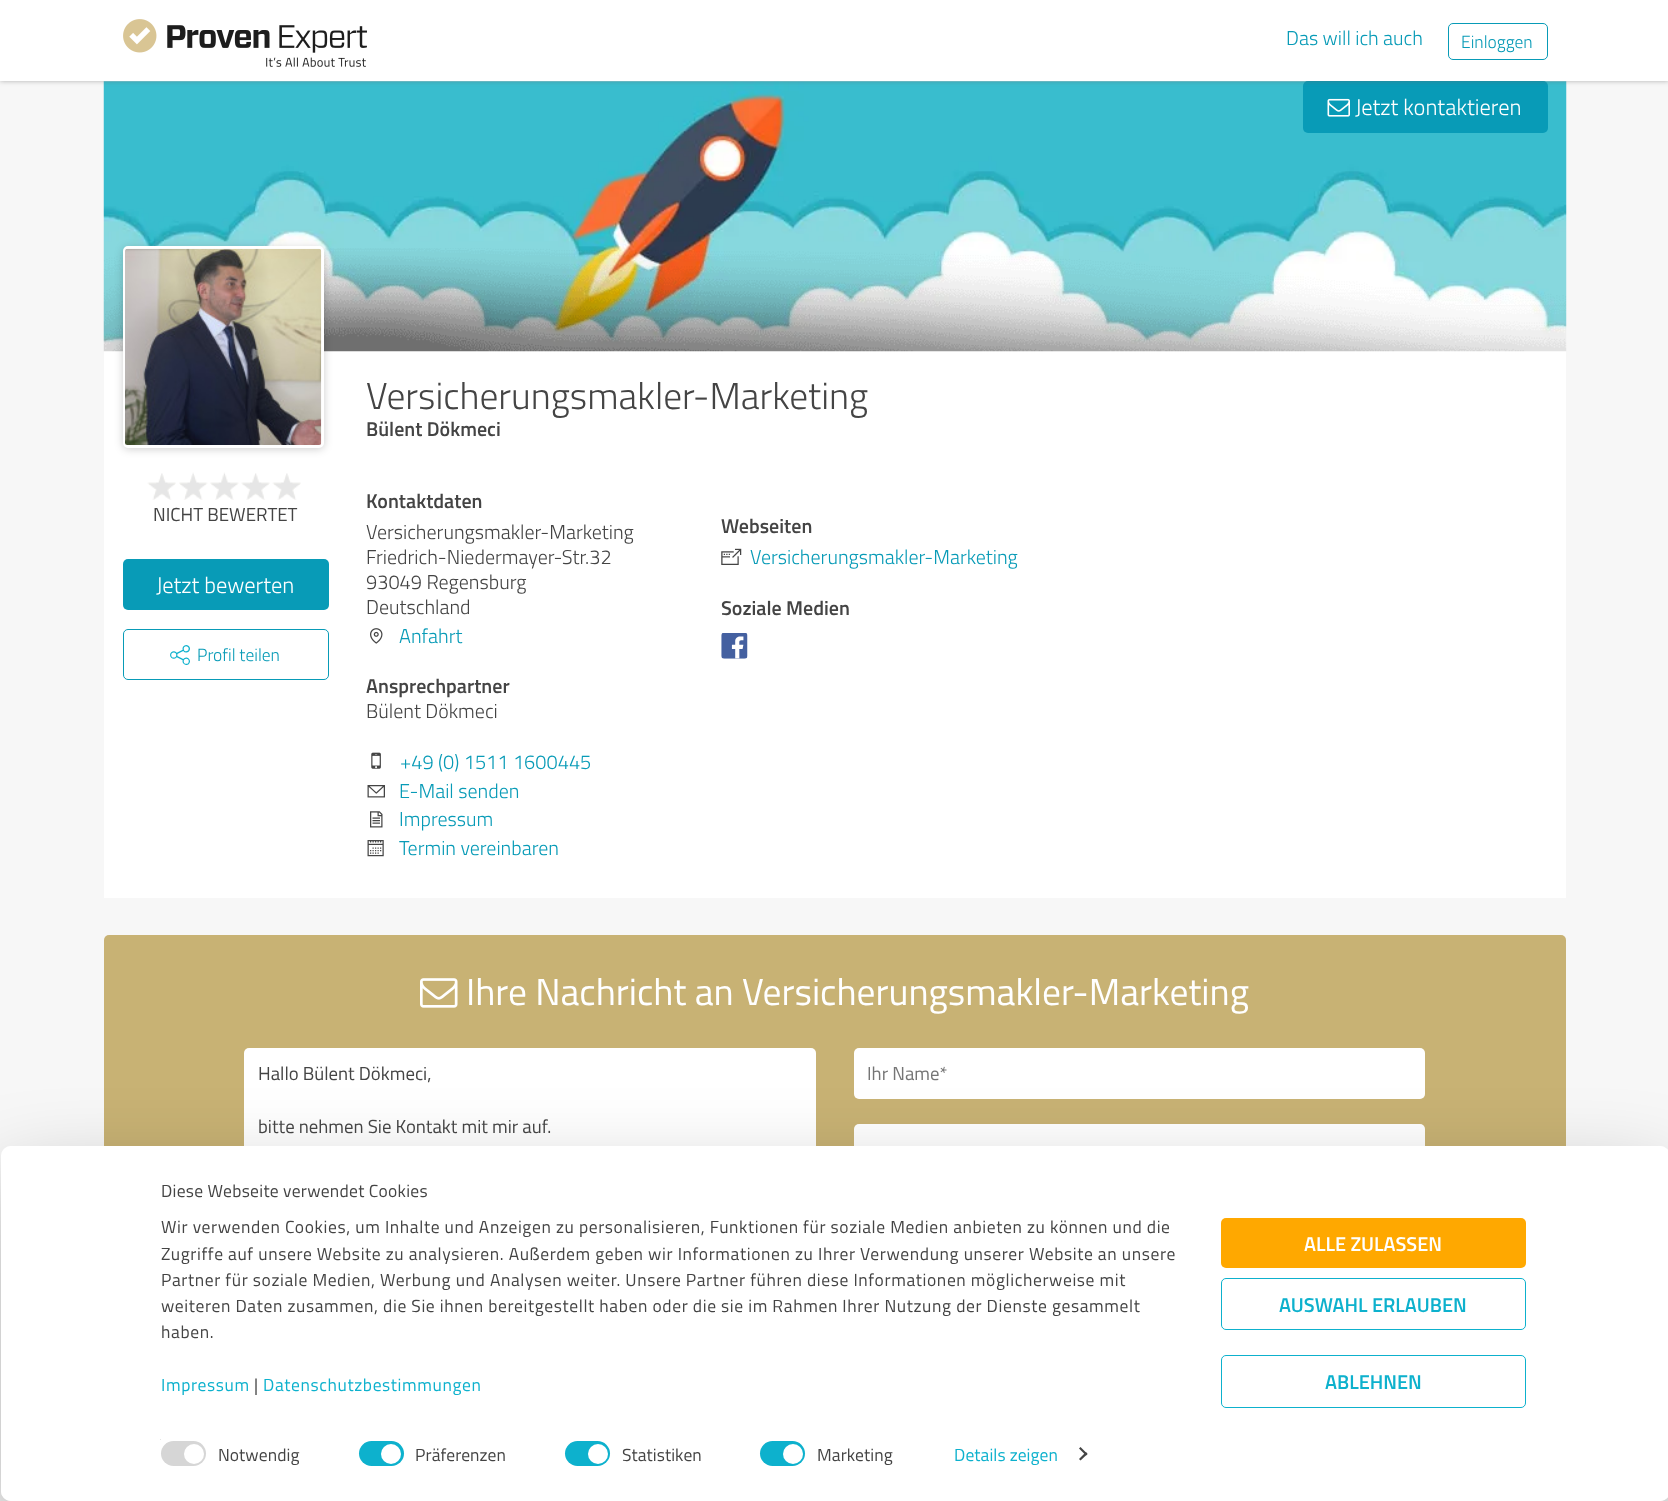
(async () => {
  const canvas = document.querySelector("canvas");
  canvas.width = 1668;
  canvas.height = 1501;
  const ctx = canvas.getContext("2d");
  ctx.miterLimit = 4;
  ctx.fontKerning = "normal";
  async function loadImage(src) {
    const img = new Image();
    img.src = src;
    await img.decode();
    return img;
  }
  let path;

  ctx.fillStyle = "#f7f7f7";
  ctx.fillRect(0, 0, 1668, 1501);
  ctx.drawImage(await loadImage("img/2.png"), 103, 81, 1464, 270);
  ctx.fillStyle = "#089bb7";
  ctx.beginPath();
  ctx.roundRect(1303, 81, 245, 52, 5);
  ctx.fill();
  ctx.fillStyle = "rgba(105, 105, 105, 0.5)";
  ctx.filter = "blur(2.5px)";
  ctx.beginPath();
  ctx.rect(0, 0, 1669, 81);
  ctx.fill();
  ctx.filter = "none";
  ctx.fillStyle = "#ffffff";
  ctx.fillRect(0, 0, 1668, 81);
  ctx.drawImage(await loadImage("img/1.png"), 123, 19, 244, 48);
  ctx.beginPath();
  ctx.roundRect(1448.5, 23.5, 99, 36, 4.5);
  ctx.strokeStyle = "#089bb7";
  ctx.stroke();
  ctx.drawImage(await loadImage("img/3.png"), 1327, 98, 23, 19);
  ctx.fillRect(104, 351, 1462, 547);
  ctx.drawImage(await loadImage("img/4.png"), 103, 248, 1464, 104);
  ctx.fillStyle = "rgba(0, 0, 0, 0.2)";
  ctx.filter = "blur(4px)";
  ctx.beginPath();
  ctx.roundRect(123, 248, 201, 201, 5);
  ctx.fill();
  ctx.filter = "none";
  ctx.beginPath();
  ctx.roundRect(124.5, 247.5, 198, 199, 3.5);
  ctx.strokeStyle = "#ffffff";
  ctx.lineWidth = 3;
  ctx.stroke();
  ctx.drawImage(await loadImage("img/5.png"), 125, 248, 197, 197);
  ctx.drawImage(await loadImage("img/6.png"), 147, 473, 29, 27);
  ctx.drawImage(await loadImage("img/7.png"), 179, 472, 29, 28);
  ctx.drawImage(await loadImage("img/8.png"), 210, 472, 29, 28);
  ctx.drawImage(await loadImage("img/9.png"), 241, 473, 29, 27);
  ctx.drawImage(await loadImage("img/6.png"), 272, 473, 29, 27);
  ctx.fillStyle = "#089bb7";
  ctx.beginPath();
  ctx.roundRect(123, 559, 206, 51, 5);
  ctx.fill();
  ctx.beginPath();
  ctx.roundRect(123.5, 629.5, 205, 50, 4.5);
  ctx.strokeStyle = "#089bb7";
  ctx.lineWidth = 1;
  ctx.stroke();
  ctx.drawImage(await loadImage("img/10.png"), 170, 645, 20, 20);
  ctx.drawImage(await loadImage("img/11.png"), 370, 628, 13, 16);
  ctx.drawImage(await loadImage("img/12.png"), 371, 752, 10, 17);
  ctx.drawImage(await loadImage("img/13.png"), 367, 785, 18, 13);
  ctx.drawImage(await loadImage("img/14.png"), 370, 811, 13, 17);
  ctx.drawImage(await loadImage("img/15.png"), 367, 840, 17, 17);
  ctx.drawImage(await loadImage("img/16.png"), 721, 548, 21, 17);
  ctx.drawImage(await loadImage("img/17.png"), 721, 633, 27, 26);
  ctx.fillStyle = "#c8b274";
  ctx.beginPath();
  ctx.roundRect(104, 935, 1462, 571, 5);
  ctx.fill();
  ctx.drawImage(await loadImage("img/18.png"), 420, 978, 38, 30);
  ctx.fillStyle = "#ffffff";
  ctx.beginPath();
  ctx.roundRect(244, 1048, 572, 431, 5);
  ctx.fill();
  ctx.beginPath();
  ctx.roundRect(854, 1048, 571, 51, 5);
  ctx.fill();
  ctx.beginPath();
  ctx.roundRect(854, 1124, 571, 51, 5);
  ctx.fill();
  ctx.save();
  path = new Path2D("M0 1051H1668V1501H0ZM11 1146H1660C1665.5 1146 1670 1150.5 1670 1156V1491C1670 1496.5 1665.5 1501 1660 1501H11C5.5 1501 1 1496.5 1 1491V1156C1 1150.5 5.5 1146 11 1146Z");
  ctx.clip(path, "evenodd");
  ctx.fillStyle = "rgba(0, 0, 0, 0.3)";
  ctx.filter = "blur(44px)";
  ctx.beginPath();
  ctx.roundRect(1, 1184, 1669, 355, 10);
  ctx.fill();
  ctx.filter = "none";
  ctx.restore();
  ctx.beginPath();
  ctx.roundRect(1, 1146, 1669, 355, 10);
  ctx.fill();
  ctx.fillStyle = "#e5e5e5";
  ctx.fillRect(160, 1439, 1, 1);
  ctx.fillStyle = "#d6d6d6";
  ctx.beginPath();
  ctx.roundRect(161, 1441, 45, 25, 12.5);
  ctx.fill();
  ctx.fillStyle = "#ffffff";
  ctx.beginPath();
  ctx.arc(194, 1454, 10, 0, Math.PI * 2);
  ctx.fill();
  ctx.fillStyle = "#0db1cd";
  ctx.beginPath();
  ctx.roundRect(359, 1441, 45, 25, 12.5);
  ctx.fill();
  ctx.fillStyle = "#ffffff";
  ctx.beginPath();
  ctx.arc(391, 1454, 10, 0, Math.PI * 2);
  ctx.fill();
  ctx.fillStyle = "#0db1cd";
  ctx.beginPath();
  ctx.roundRect(565, 1441, 45, 25, 12.5);
  ctx.fill();
  ctx.fillStyle = "#ffffff";
  ctx.beginPath();
  ctx.arc(598, 1454, 10, 0, Math.PI * 2);
  ctx.fill();
  ctx.fillStyle = "#0db1cd";
  ctx.beginPath();
  ctx.roundRect(760, 1441, 45, 25, 12.5);
  ctx.fill();
  ctx.fillStyle = "#ffffff";
  ctx.beginPath();
  ctx.arc(793, 1454, 10, 0, Math.PI * 2);
  ctx.fill();
  ctx.fillStyle = "#444444";
  path = new Path2D("M1080.5 1447L1087.5 1454L1086 1455.5L1079 1448.5Z");
  ctx.fill(path);
  path = new Path2D("M1086 1452L1087.5 1454L1080.5 1460.5L1079 1459Z");
  ctx.fill(path);
  ctx.fillStyle = "#ffa800";
  ctx.beginPath();
  ctx.roundRect(1221, 1218, 305, 50, 5);
  ctx.fill();
  ctx.beginPath();
  ctx.roundRect(1221.5, 1278.5, 304, 51, 4.5);
  ctx.strokeStyle = "#0db1cd";
  ctx.stroke();
  ctx.beginPath();
  ctx.roundRect(1221.5, 1355.5, 304, 52, 4.5);
  ctx.stroke();
  ctx.font = "300 20px Titillium Web";
  ctx.fillStyle = "#089bb7";
  ctx.fillText("Das will ich auch", 1286, 45);
  ctx.font = "300 17.5px Titillium Web";
  ctx.fillText("Einloggen", 1461, 48);
  ctx.font = "300 22.5px Titillium Web";
  ctx.fillStyle = "#ffffff";
  ctx.fillText("Jetzt kontaktieren", 1355, 115);
  ctx.font = "300 37.5px Titillium Web";
  ctx.fillStyle = "#444444";
  ctx.fillText("Versicherungsmakler-Marketing", 366, 409);
  ctx.font = "600 20px Titillium Web";
  ctx.fillText("Bülent Dökmeci", 366, 436);
  ctx.font = "18.75px Titillium Web";
  ctx.fillText("NICHT BEWERTET", 153, 521);
  ctx.font = "300 22.5px Titillium Web";
  ctx.fillStyle = "#ffffff";
  ctx.fillText("Jetzt bewerten", 156, 593);
  ctx.font = "300 17.5px Titillium Web";
  ctx.fillStyle = "#089bb7";
  ctx.fillText("Profil teilen", 197, 661);
  ctx.font = "600 20px Titillium Web";
  ctx.fillStyle = "#444444";
  ctx.fillText("Kontaktdaten", 366, 508);
  ctx.font = "300 20px Titillium Web";
  for (const [text, x, y] of [
    ["Versicherungsmakler-Marketing", 366, 539],
    ["Friedrich-Niedermayer-Str.32", 366, 564],
    ["93049 Regensburg", 366, 589],
    ["Deutschland", 366, 614],
  ]) {
    ctx.fillText(text, x, y);
  }
  ctx.fillStyle = "#089bb7";
  ctx.fillText("Anfahrt", 399, 643);
  ctx.font = "600 20px Titillium Web";
  ctx.fillStyle = "#444444";
  ctx.fillText("Ansprechpartner", 366, 693);
  ctx.font = "300 20px Titillium Web";
  ctx.fillText("Bülent Dökmeci", 366, 718);
  ctx.fillStyle = "#089bb7";
  for (const [text, x, y] of [
    ["+49 (0) 1511 1600445", 400, 769],
    ["E-Mail senden", 399, 798],
    ["Impressum", 399, 826],
    ["Termin vereinbaren", 399, 855],
  ]) {
    ctx.fillText(text, x, y);
  }
  ctx.font = "600 20px Titillium Web";
  ctx.fillStyle = "#444444";
  ctx.fillText("Webseiten", 721, 533);
  ctx.font = "300 20px Titillium Web";
  ctx.fillStyle = "#089bb7";
  ctx.fillText("Versicherungsmakler-Marketing", 750, 564);
  ctx.font = "600 20px Titillium Web";
  ctx.fillStyle = "#444444";
  ctx.fillText("Soziale Medien", 721, 615);
  ctx.font = "37.5px Titillium Web";
  ctx.fillStyle = "#ffffff";
  ctx.fillText("Ihre Nachricht an Versicherungsmakler-Marketing", 466, 1005);
  ctx.font = "18.75px Titillium Web";
  ctx.fillStyle = "#444444";
  ctx.fillText("Hallo Bülent Dökmeci,", 258, 1080);
  ctx.fillText("bitte nehmen Sie Kontakt mit mir auf.", 258, 1133);
  ctx.fillStyle = "#757575";
  ctx.fillText("Ihr Name*", 867, 1080);
  ctx.letterSpacing = "0.3px";
  ctx.font = "17.5px Titillium Web";
  ctx.fillStyle = "#444444";
  ctx.fillText("Diese Webseite verwendet Cookies", 161, 1197);
  ctx.letterSpacing = "0.62px";
  for (const [text, x, y] of [
    ["Wir verwenden Cookies, um Inhalte und Anzeigen zu personalisieren, Funktionen für soziale Medien anbieten zu können und die", 161, 1233],
    ["Zugriffe auf unsere Website zu analysieren. Außerdem geben wir Informationen zu Ihrer Verwendung unserer Website an unsere", 161, 1260],
    ["Partner für soziale Medien, Werbung und Analysen weiter. Unsere Partner führen diese Informationen möglicherweise mit", 161, 1286],
    ["weiteren Daten zusammen, die Sie ihnen bereitgestellt haben oder die sie im Rahmen Ihrer Nutzung der Dienste gesammelt", 161, 1312],
    ["haben.", 161, 1338],
  ]) {
    ctx.fillText(text, x, y);
  }
  ctx.fillStyle = "#0db1cd";
  ctx.fillText("Impressum", 161, 1391);
  ctx.fillStyle = "#444444";
  ctx.fillText("|", 254, 1391);
  ctx.fillStyle = "#0db1cd";
  ctx.fillText("Datenschutzbestimmungen", 263, 1391);
  ctx.letterSpacing = "0.1px";
  ctx.fillStyle = "#444444";
  for (const [text, x, y] of [
    ["Notwendig", 218, 1461],
    ["Präferenzen", 415, 1461],
    ["Statistiken", 622, 1461],
    ["Marketing", 817, 1461],
  ]) {
    ctx.fillText(text, x, y);
  }
  ctx.fillStyle = "#0db1cd";
  ctx.fillText("Details zeigen", 954, 1461);
  ctx.letterSpacing = "0px";
  ctx.font = "600 20px Titillium Web";
  ctx.fillStyle = "#ffffff";
  ctx.fillText("ALLE ZULASSEN", 1304, 1251);
  ctx.fillStyle = "#0db1cd";
  ctx.fillText("AUSWAHL ERLAUBEN", 1279, 1312);
  ctx.fillText("ABLEHNEN", 1325, 1389);
})();
